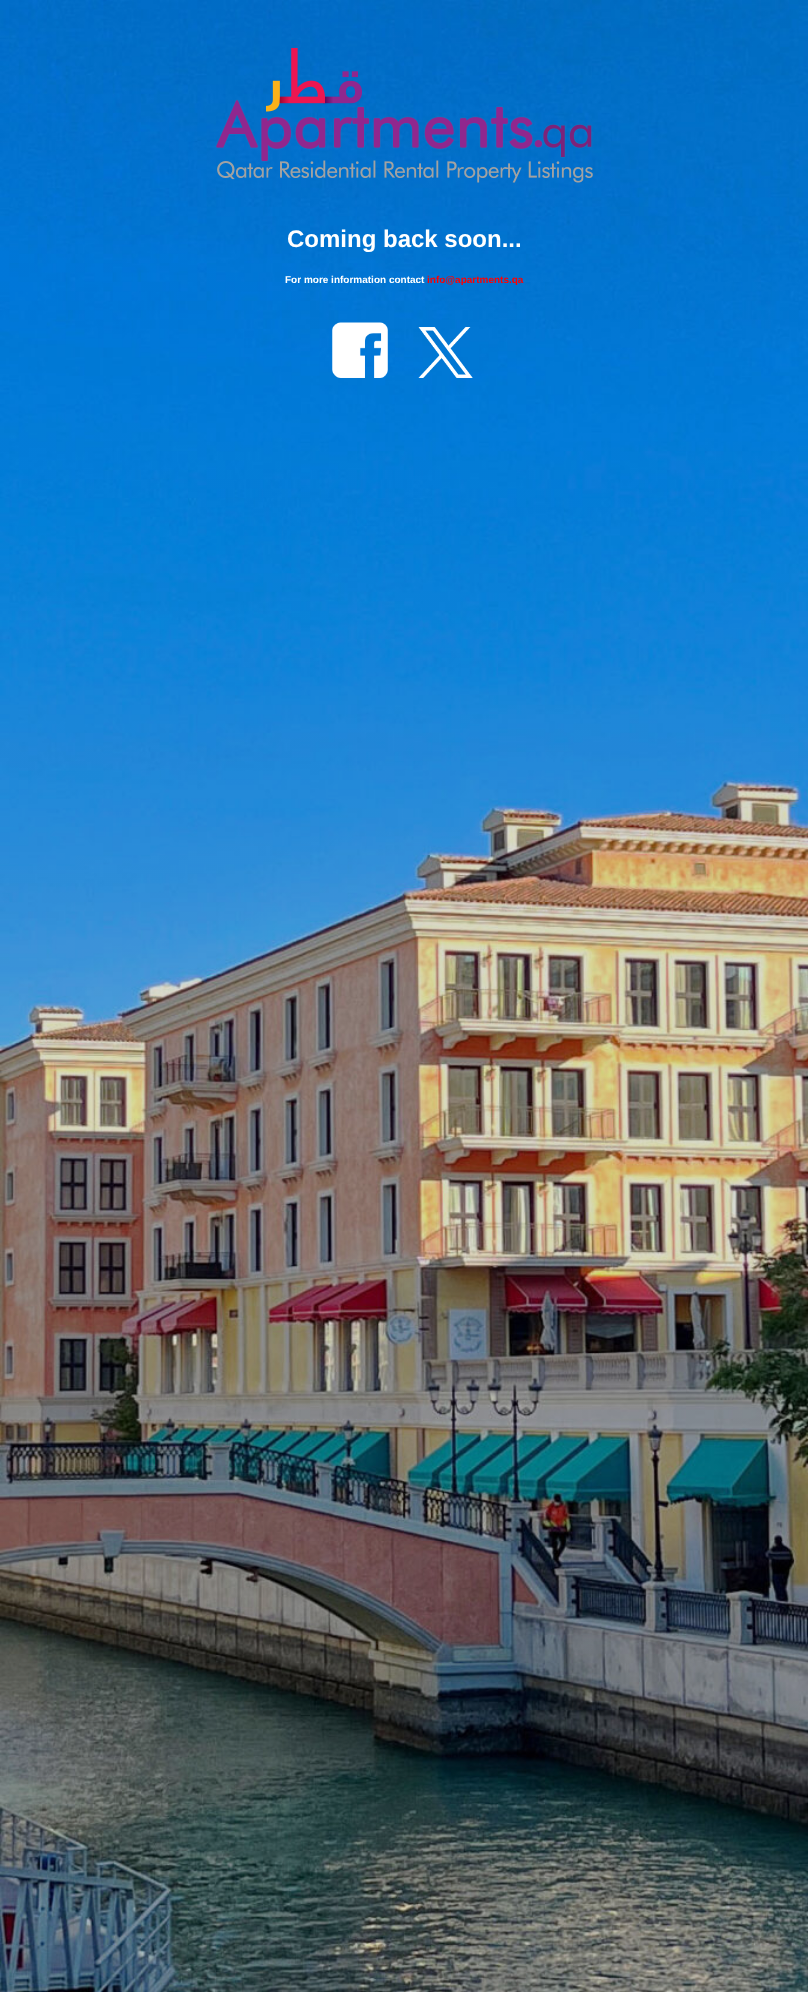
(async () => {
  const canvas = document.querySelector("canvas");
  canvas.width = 808;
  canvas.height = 1992;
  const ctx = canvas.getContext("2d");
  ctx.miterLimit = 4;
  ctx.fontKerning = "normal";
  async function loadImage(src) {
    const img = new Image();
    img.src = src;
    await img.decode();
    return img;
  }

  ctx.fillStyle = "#ffffff";
  ctx.fillRect(0, 0, 808, 1992);
  ctx.drawImage(await loadImage("img/1.png"), 0, 0, 808, 1992);
  ctx.drawImage(await loadImage("img/2.png"), 215, 48, 378, 135);
  ctx.drawImage(await loadImage("img/3.png"), 332, 322, 56, 56);
  ctx.drawImage(await loadImage("img/4.png"), 418, 327, 55, 51);
  ctx.font = "bold 24px Liberation Sans";
  ctx.fillText("Coming back soon...", 287, 247);
  ctx.font = "bold 10px Liberation Sans";
  ctx.fillText("For more information contact", 285, 283);
  ctx.fillStyle = "#ff0000";
  ctx.fillText("info@apartments.qa", 427, 283);
})();
